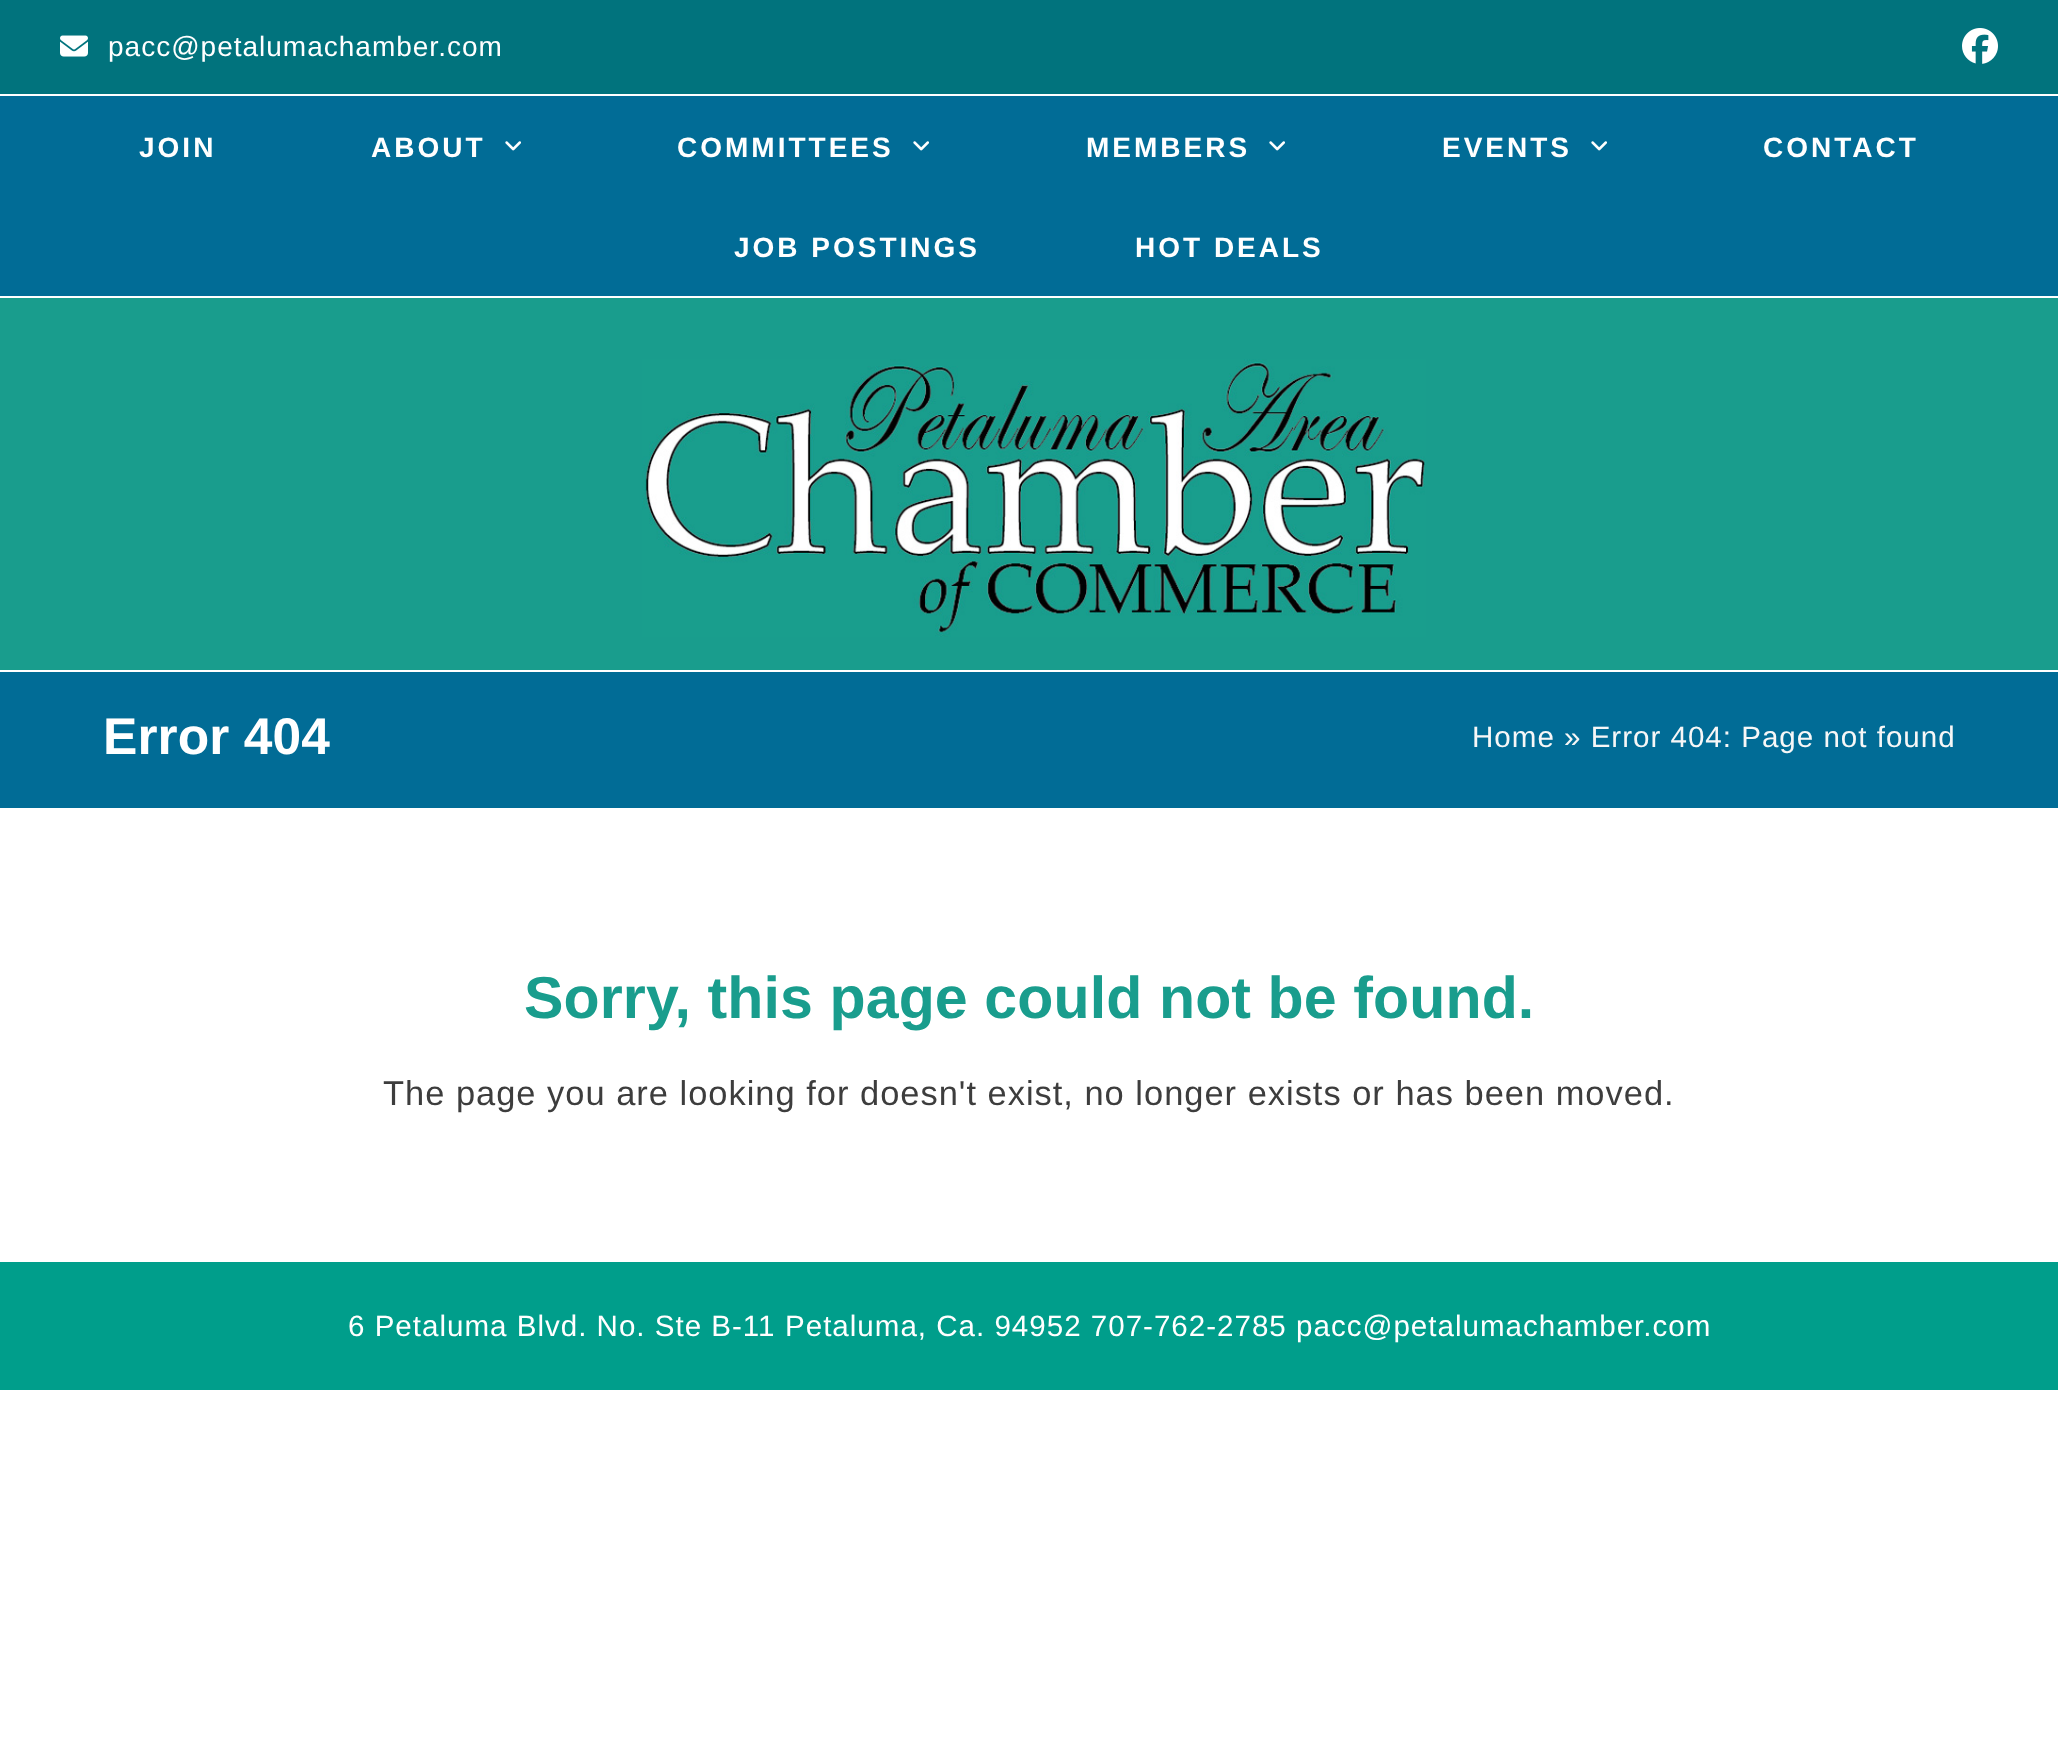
(async () => {
  const canvas = document.querySelector("canvas");
  canvas.width = 2058;
  canvas.height = 1759;
  const ctx = canvas.getContext("2d");
  ctx.miterLimit = 4;
  ctx.fontKerning = "normal";
  async function loadImage(src) {
    const img = new Image();
    img.src = src;
    await img.decode();
    return img;
  }

  ctx.fillStyle = "#ffffff";
  ctx.fillRect(0, 0, 2058, 1759);
  ctx.fillStyle = "#01737d";
  ctx.fillRect(0, 0, 2058, 94);
  ctx.drawImage(await loadImage("img/1.png"), 60, 35, 28, 22);
  ctx.drawImage(await loadImage("img/2.png"), 1962, 28, 36, 36);
  ctx.fillStyle = "#199d8d";
  ctx.fillRect(0, 298, 2058, 372);
  ctx.fillStyle = "#016c96";
  ctx.fillRect(0, 96, 2058, 200);
  ctx.drawImage(await loadImage("img/3.png"), 505, 141, 16, 10);
  ctx.drawImage(await loadImage("img/3.png"), 913, 141, 16, 10);
  ctx.drawImage(await loadImage("img/3.png"), 1269, 141, 16, 10);
  ctx.drawImage(await loadImage("img/3.png"), 1591, 141, 16, 10);
  ctx.drawImage(await loadImage("img/4.png"), 642, 359, 784, 278);
  ctx.fillRect(0, 672, 2058, 136);
  ctx.fillStyle = "#009e8b";
  ctx.fillRect(0, 1262, 2058, 128);
  ctx.letterSpacing = "1px";
  ctx.font = "28px Liberation Sans";
  ctx.fillStyle = "#ffffff";
  ctx.fillText("pacc@petalumachamber.com", 108, 56);
  ctx.letterSpacing = "3px";
  ctx.font = "bold 28px Liberation Sans";
  for (const [text, x, y] of [
    ["JOIN", 139, 157],
    ["ABOUT", 371, 157],
    ["COMMITTEES", 677, 157],
    ["MEMBERS", 1086, 157],
    ["EVENTS", 1442, 157],
    ["CONTACT", 1763, 157],
    ["JOB POSTINGS", 734, 257],
    ["HOT DEALS", 1135, 257],
  ]) {
    ctx.fillText(text, x, y);
  }
  ctx.letterSpacing = "0.1px";
  ctx.font = "bold 51.5px Liberation Sans";
  ctx.fillText("Error 404", 103, 754);
  ctx.letterSpacing = "1px";
  ctx.font = "29.55px Liberation Sans";
  ctx.fillStyle = "#f7f7f7";
  ctx.fillText("Home", 1472, 747);
  ctx.fillText("» Error 404: Page not found", 1564, 747);
  ctx.letterSpacing = "0.1px";
  ctx.font = "bold 59.1px Liberation Sans";
  ctx.fillStyle = "#199d8d";
  ctx.fillText("Sorry, this page could not be found.", 524, 1018);
  ctx.letterSpacing = "1px";
  ctx.font = "34.45px Liberation Sans";
  ctx.fillStyle = "#3d3d3d";
  ctx.fillText("The page you are looking for doesn't exist, no longer exists or has been moved.", 383, 1105);
  ctx.font = "29.55px Liberation Sans";
  ctx.fillStyle = "#ffffff";
  ctx.fillText("6 Petaluma Blvd. No. Ste B-11", 348, 1336);
  ctx.fillText("Petaluma, Ca. 94952 707-762-2785 pacc@petalumachamber.com", 785, 1336);
})();
